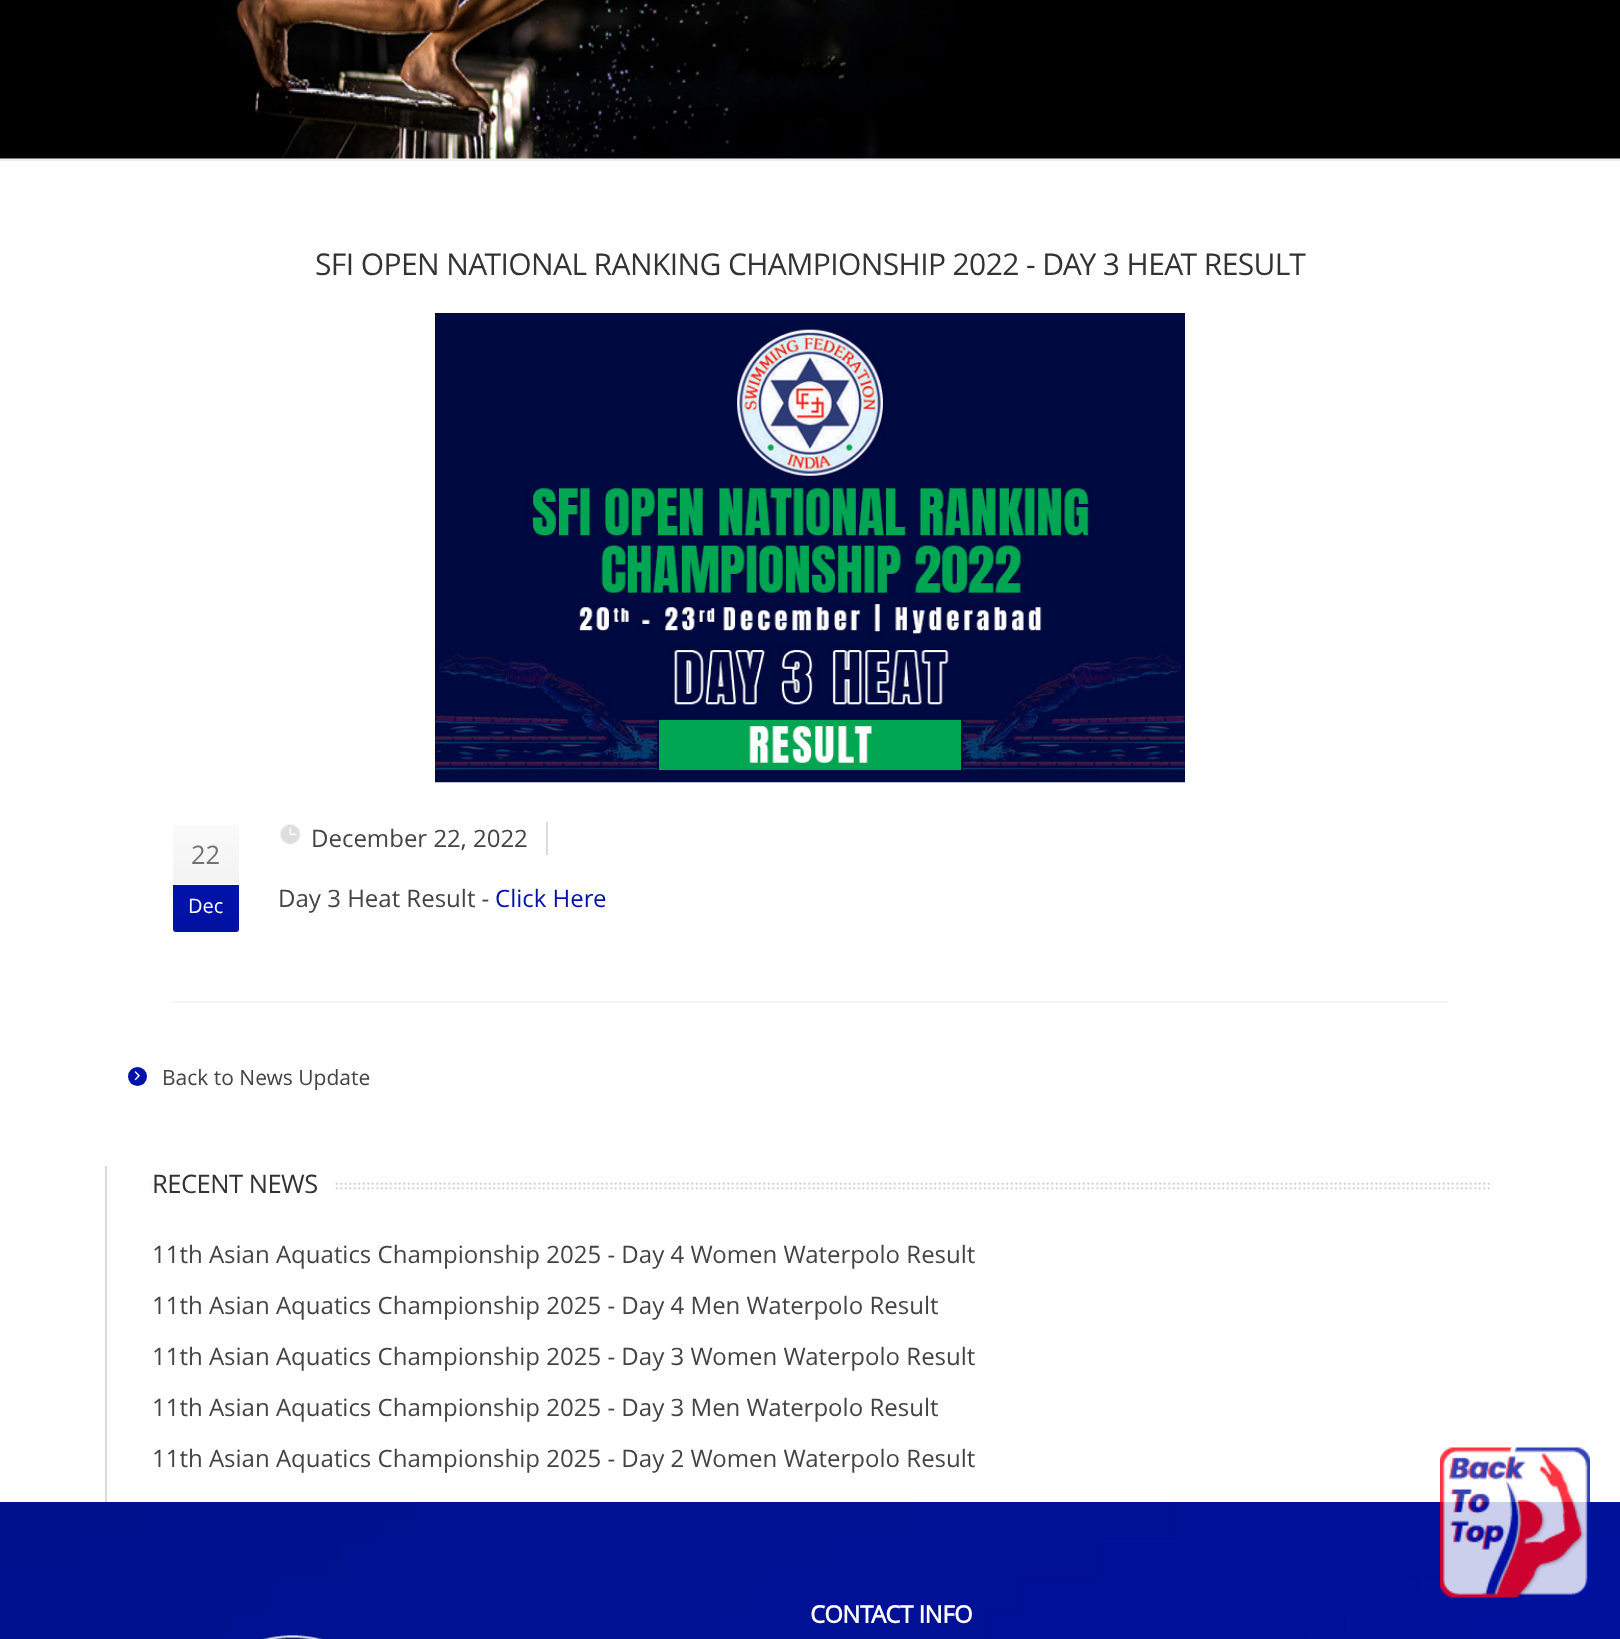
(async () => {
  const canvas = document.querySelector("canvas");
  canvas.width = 1620;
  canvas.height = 1639;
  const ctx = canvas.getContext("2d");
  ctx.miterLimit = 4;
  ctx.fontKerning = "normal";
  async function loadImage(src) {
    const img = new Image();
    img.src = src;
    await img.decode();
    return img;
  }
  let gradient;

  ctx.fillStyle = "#ffffff";
  ctx.fillRect(0, 0, 1620, 1639);
  ctx.drawImage(await loadImage("img/1.png"), 0, 0, 1620, 159);
  ctx.fillStyle = "#eeeeee";
  ctx.fillRect(0, 159, 1620, 2);
  ctx.fillStyle = "#f4f4f4";
  ctx.fillRect(173, 1001, 1275, 2);
  ctx.drawImage(await loadImage("img/2.png"), 435, 313, 750, 470);
  gradient = ctx.createLinearGradient(206, 825, 206, 884);
  gradient.addColorStop(0, "#fafafa");
  gradient.addColorStop(1, "#f3f3f3");
  ctx.fillStyle = gradient;
  ctx.beginPath();
  ctx.roundRect(173, 825, 66, 59, [3, 3, 0, 0]);
  ctx.fill();
  ctx.fillStyle = "#0112a8";
  ctx.beginPath();
  ctx.roundRect(173, 885, 66, 47, [0, 0, 3, 3]);
  ctx.fill();
  gradient = ctx.createLinearGradient(206, 885, 206, 930);
  gradient.addColorStop(0, "rgba(0, 0, 0, 0)");
  gradient.addColorStop(1, "rgba(0, 0, 0, 0.04)");
  ctx.fillStyle = gradient;
  ctx.fillRect(173, 909, 66, 21);
  ctx.fillStyle = "rgba(0, 0, 0, 0.08)";
  ctx.fillRect(174, 930, 63, 2);
  ctx.drawImage(await loadImage("img/3.png"), 280, 824, 21, 21);
  ctx.fillStyle = "#dddddd";
  ctx.fillRect(546, 822, 2, 33);
  ctx.fillStyle = "#0112a8";
  ctx.beginPath();
  ctx.arc(137.5, 1076.5, 9.5, 0, Math.PI * 2);
  ctx.fill();
  ctx.drawImage(await loadImage("img/4.png"), 134, 1071, 6, 10);
  ctx.fillStyle = "#dadada";
  ctx.fillRect(105, 1166, 2, 336);
  ctx.drawImage(await loadImage("img/5.png"), 151, 1182, 1342, 8);
  ctx.fillStyle = "#ffffff";
  ctx.fillRect(152, 1182, 182, 8);
  ctx.drawImage(await loadImage("img/6.png"), 0, 1502, 1620, 137);
  ctx.drawImage(await loadImage("img/7.png"), 262, 1635, 61, 4);
  ctx.drawImage(await loadImage("img/8.png"), 1440, 1447, 150, 151);
  ctx.letterSpacing = "-0.6px";
  ctx.font = "30px Open Sans";
  ctx.fillStyle = "#333333";
  ctx.fillText("SFI OPEN NATIONAL RANKING CHAMPIONSHIP 2022 - DAY 3 HEAT RESULT", 315, 275);
  ctx.letterSpacing = "0px";
  ctx.font = "25.5px Open Sans";
  ctx.fillStyle = "#727272";
  ctx.fillText("22", 191, 864);
  ctx.font = "20px Open Sans";
  ctx.fillStyle = "#ffffff";
  ctx.fillText("Dec", 188, 913);
  ctx.font = "24px Open Sans";
  ctx.fillStyle = "#444444";
  ctx.fillText("December 22, 2022", 311, 847);
  ctx.fillText("Day 3 Heat Result -", 278, 907);
  ctx.fillStyle = "#0112a8";
  ctx.fillText("Click Here", 495, 907);
  ctx.font = "21px Open Sans";
  ctx.fillStyle = "#444444";
  ctx.fillText("Back to News Update", 162, 1085);
  ctx.letterSpacing = "-0.5px";
  ctx.font = "25.5px Open Sans";
  ctx.fillStyle = "#333333";
  ctx.fillText("RECENT NEWS", 152, 1193);
  ctx.letterSpacing = "0px";
  ctx.font = "24px Open Sans";
  ctx.fillStyle = "#444444";
  for (const [text, x, y] of [
    ["11th Asian Aquatics Championship 2025 - Day 4 Women Waterpolo Result", 152, 1263],
    ["11th Asian Aquatics Championship 2025 - Day 4 Men Waterpolo Result", 152, 1314],
    ["11th Asian Aquatics Championship 2025 - Day 3 Women Waterpolo Result", 152, 1365],
    ["11th Asian Aquatics Championship 2025 - Day 3 Men Waterpolo Result", 152, 1416],
    ["11th Asian Aquatics Championship 2025 - Day 2 Women Waterpolo Result", 152, 1467],
  ]) {
    ctx.fillText(text, x, y);
  }
  ctx.letterSpacing = "-0.5px";
  ctx.font = "bold 24px Open Sans";
  ctx.fillStyle = "#ffffff";
  ctx.fillText("CONTACT INFO", 810, 1623);
})();
